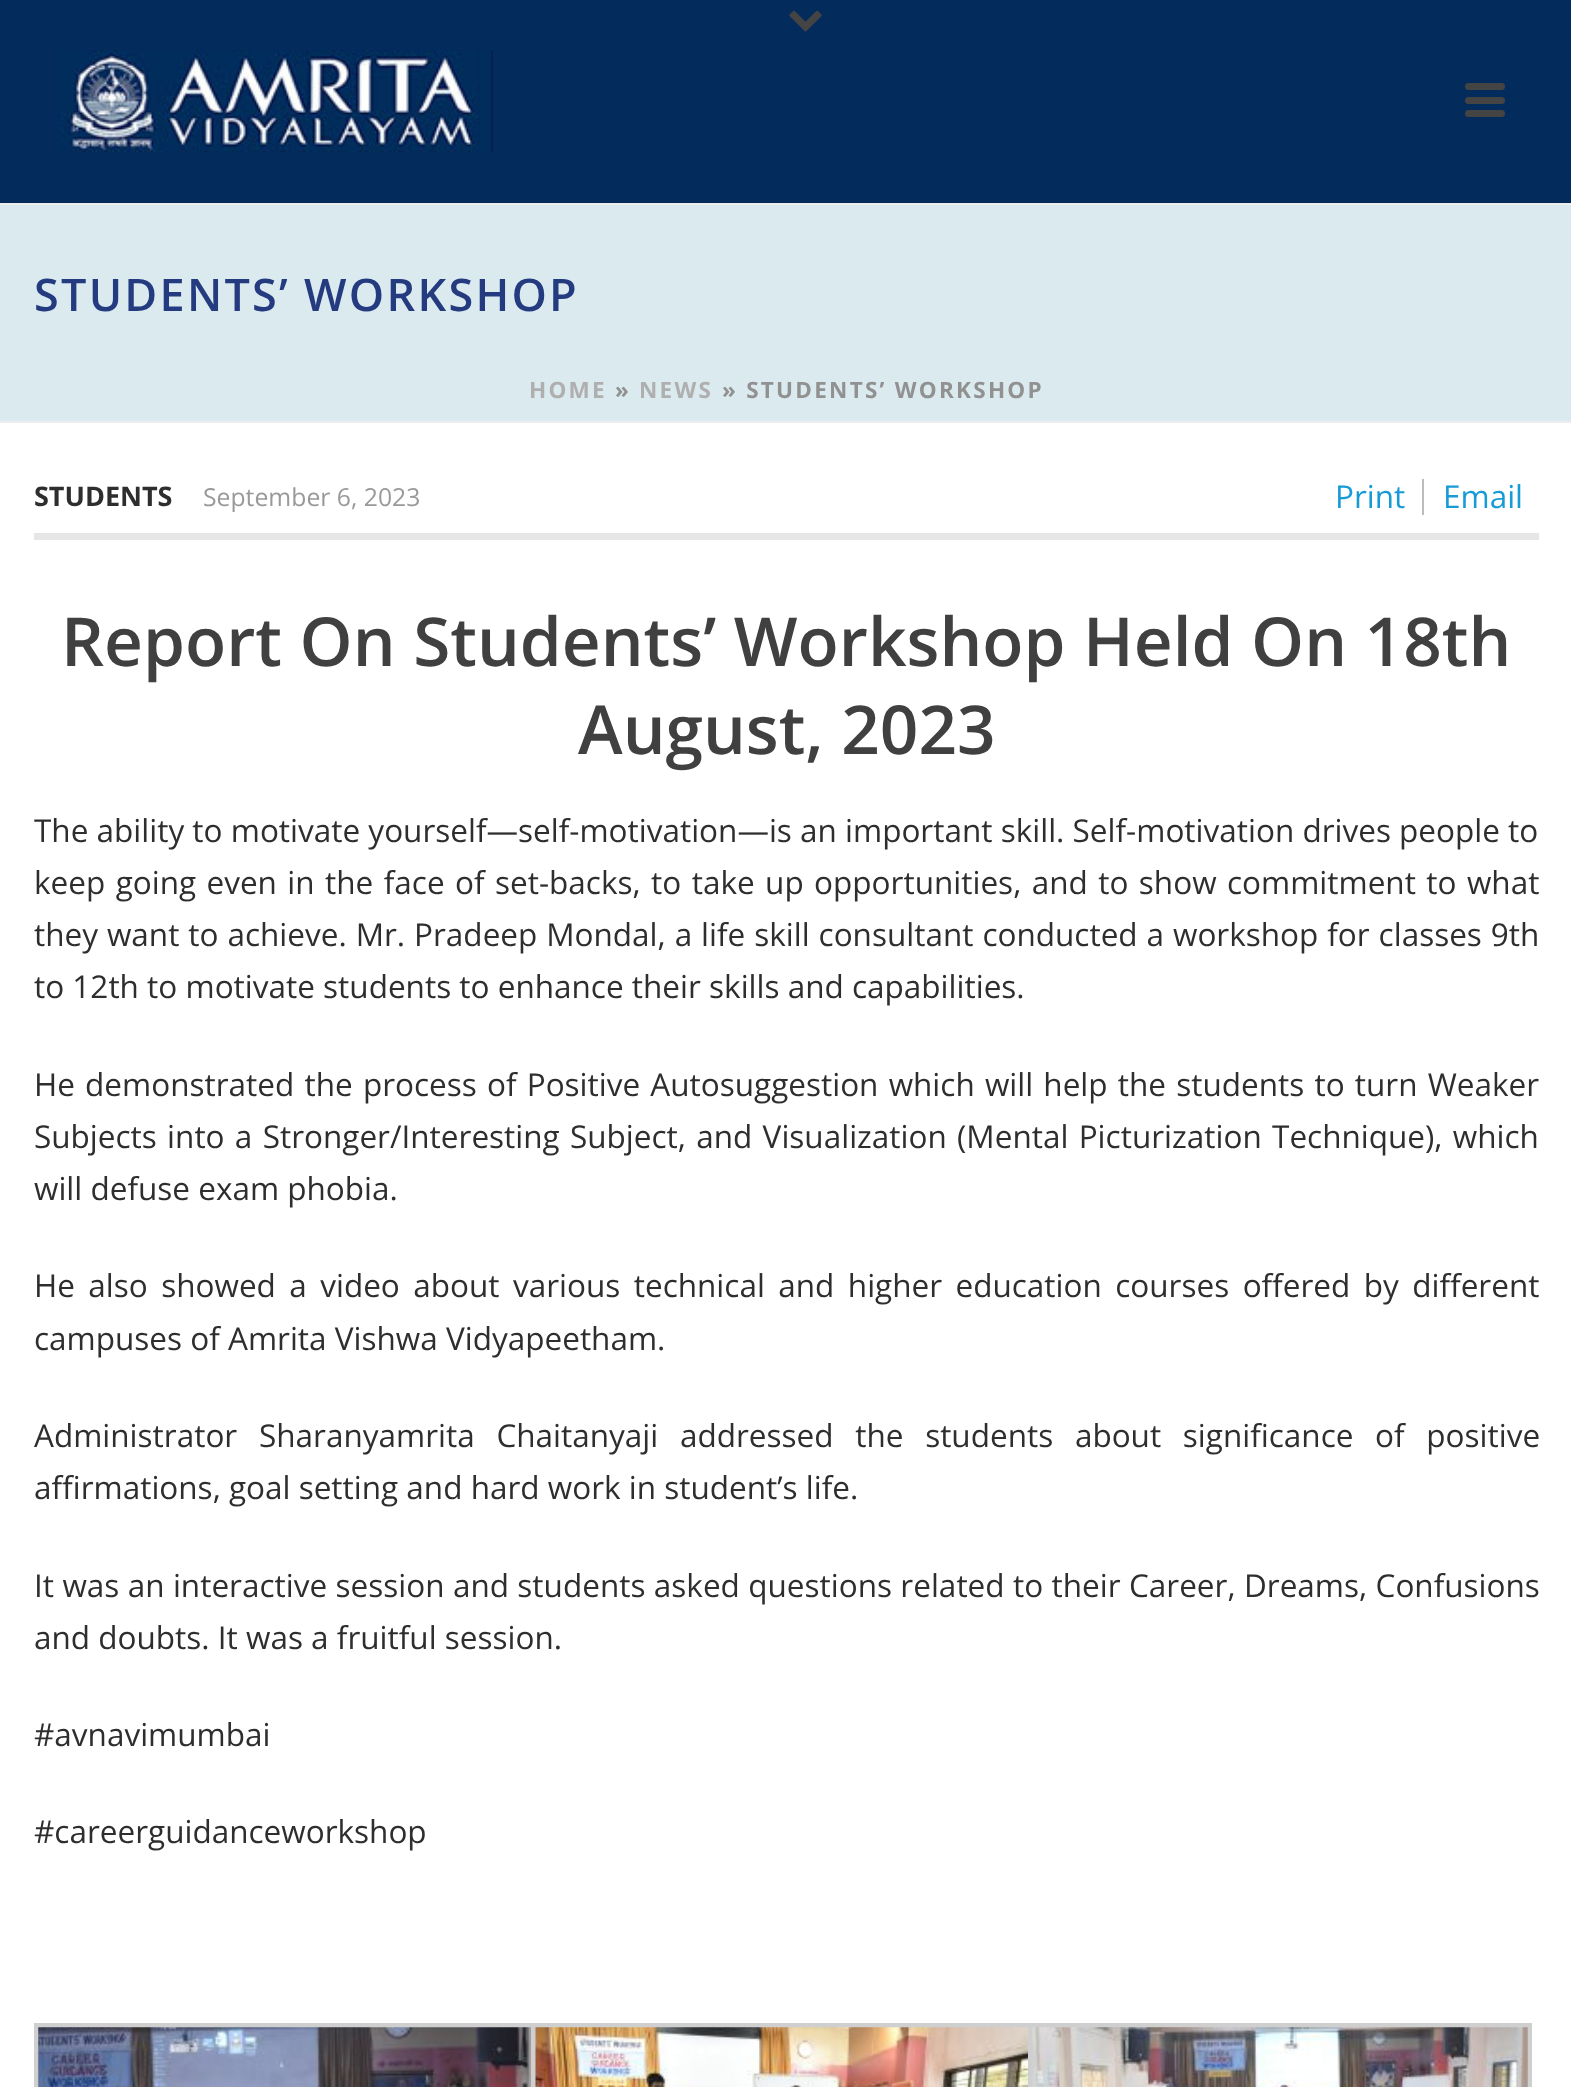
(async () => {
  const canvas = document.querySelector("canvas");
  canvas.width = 1571;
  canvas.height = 2087;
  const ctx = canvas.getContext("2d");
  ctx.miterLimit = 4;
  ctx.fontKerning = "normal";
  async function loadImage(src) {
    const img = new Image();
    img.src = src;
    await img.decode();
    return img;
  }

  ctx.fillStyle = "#ffffff";
  ctx.fillRect(0, 0, 1571, 2087);
  for (const [x, y, w, h, color] of [
    [0, 421, 1571, 2, "#ededed"],
    [0, 203, 1571, 2, "#ededed"],
    [0, 0, 1571, 203, "#032b5c"],
  ]) {
    ctx.fillStyle = color;
    ctx.fillRect(x, y, w, h);
  }
  ctx.drawImage(await loadImage("img/1.png"), 789, 10, 33, 22);
  ctx.drawImage(await loadImage("img/2.png"), 58, 50, 435, 102);
  ctx.fillStyle = "#444444";
  ctx.beginPath();
  ctx.roundRect(1465, 83, 40, 7, 3.5);
  ctx.fill();
  ctx.beginPath();
  ctx.roundRect(1465, 97, 40, 7, 3.5);
  ctx.fill();
  ctx.beginPath();
  ctx.roundRect(1465, 110, 40, 7, 3.5);
  ctx.fill();
  for (const [x, y, w, h, color] of [
    [0, 205, 1571, 216, "#daeaef"],
    [34, 533, 1505, 7, "#e6e6e6"],
    [1422, 479, 2, 36, "#bcbcbc"],
  ]) {
    ctx.fillStyle = color;
    ctx.fillRect(x, y, w, h);
  }
  ctx.strokeStyle = "#cfcfcf";
  ctx.lineWidth = 5;
  ctx.strokeRect(36.5, 2025.5, 501, 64);
  ctx.drawImage(await loadImage("img/3.png"), 38, 2027, 493, 60);
  ctx.strokeRect(533.5, 2025.5, 501, 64);
  ctx.drawImage(await loadImage("img/4.png"), 535, 2027, 493, 60);
  ctx.strokeRect(1030.5, 2025.5, 499, 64);
  ctx.drawImage(await loadImage("img/5.png"), 1032, 2027, 496, 60);
  ctx.letterSpacing = "2.25px";
  ctx.font = "600 45px Open Sans";
  ctx.fillStyle = "#253b80";
  ctx.fillText("STUDENTS’ WORKSHOP", 34, 311);
  ctx.font = "bold 22.5px Open Sans";
  ctx.fillStyle = "#afafaf";
  ctx.fillText("HOME", 529, 398);
  ctx.fillStyle = "#919191";
  ctx.fillText("»", 615, 398);
  ctx.fillStyle = "#afafaf";
  ctx.fillText("NEWS", 639, 398);
  ctx.fillStyle = "#919191";
  ctx.fillText("» STUDENTS’ WORKSHOP", 722, 398);
  ctx.letterSpacing = "0px";
  ctx.font = "bold 27px Open Sans";
  ctx.fillStyle = "#2e2e2e";
  ctx.fillText("STUDENTS", 34, 506);
  ctx.font = "24.75px Open Sans";
  ctx.fillStyle = "#999999";
  ctx.fillText("September 6, 2023", 203, 506);
  ctx.font = "31.5px Open Sans";
  ctx.fillStyle = "#179bd7";
  ctx.fillText("Print", 1335, 508);
  ctx.fillText("Email", 1443, 508);
  ctx.font = "600 67.5px Open Sans";
  ctx.fillStyle = "#404040";
  ctx.fillText("Report On Students’ Workshop Held On 18th", 61, 666);
  ctx.fillText("August, 2023", 578, 754);
  ctx.font = "31.5px Open Sans";
  ctx.fillStyle = "#2e2e2e";
  ctx.fillText("The ability to motivate yourself—self-motivation—is an important skill. Self-motivation drives people to", 34, 842);
  ctx.wordSpacing = "2.25px";
  ctx.fillText("keep going even in the face of set-backs, to take up opportunities, and to show commitment to what", 34, 894);
  ctx.wordSpacing = "0.75px";
  ctx.fillText("they want to achieve. Mr. Pradeep Mondal, a life skill consultant conducted a workshop for classes 9th", 34, 946);
  ctx.wordSpacing = "0px";
  ctx.fillText("to 12th to motivate students to enhance their skills and capabilities.", 34, 998);
  ctx.wordSpacing = "2px";
  ctx.fillText("He demonstrated the process of Positive Autosuggestion which will help the students to turn Weaker", 34, 1096);
  ctx.wordSpacing = "2.1px";
  ctx.fillText("Subjects into a Stronger/Interesting Subject, and Visualization (Mental Picturization Technique), which", 34, 1148);
  ctx.wordSpacing = "0px";
  ctx.fillText("will defuse exam phobia.", 34, 1200);
  ctx.wordSpacing = "5.25px";
  ctx.fillText("He also showed a video about various technical and higher education courses offered by different", 34, 1297);
  ctx.wordSpacing = "0px";
  ctx.fillText("campuses of Amrita Vishwa Vidyapeetham.", 34, 1350);
  ctx.wordSpacing = "13.5px";
  ctx.fillText("Administrator Sharanyamrita Chaitanyaji addressed the students about significance of positive", 34, 1447);
  ctx.wordSpacing = "0px";
  ctx.fillText("affirmations, goal setting and hard work in student’s life.", 34, 1499);
  ctx.wordSpacing = "0.2px";
  ctx.fillText("It was an interactive session and students asked questions related to their Career, Dreams, Confusions", 34, 1597);
  ctx.wordSpacing = "0px";
  for (const [text, x, y] of [
    ["and doubts. It was a fruitful session.", 34, 1649],
    ["#avnavimumbai", 34, 1746],
    ["#careerguidanceworkshop", 34, 1843],
  ]) {
    ctx.fillText(text, x, y);
  }
})();
